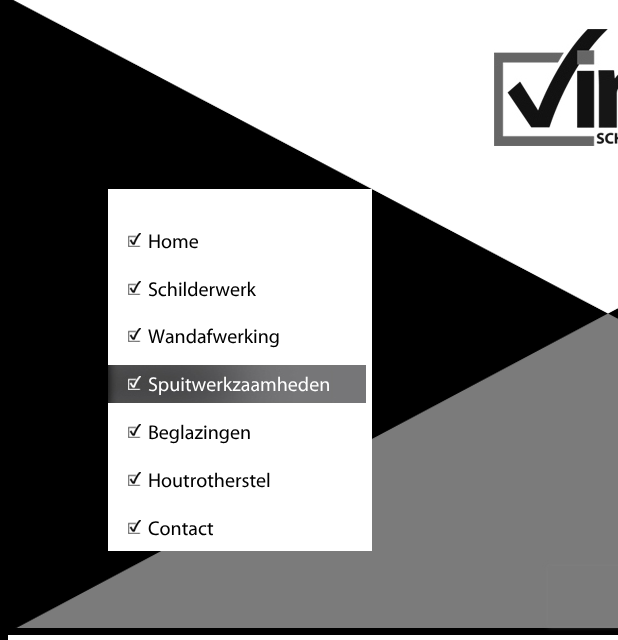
(async () => {
  const canvas = document.querySelector("canvas");
  canvas.width = 618;
  canvas.height = 640;
  const ctx = canvas.getContext("2d");
  ctx.miterLimit = 4;
  ctx.fontKerning = "normal";
  async function loadImage(src) {
    const img = new Image();
    img.src = src;
    await img.decode();
    return img;
  }
  let path;

  ctx.fillStyle = "#000000";
  ctx.fillRect(0, 0, 618, 640);
  ctx.drawImage(await loadImage("img/1.png"), 12, 0, 606, 628);
  ctx.drawImage(await loadImage("img/2.png"), 494, 29, 124, 117);
  ctx.fillStyle = "#ffffff";
  ctx.fillRect(108, 189, 264, 362);
  ctx.drawImage(await loadImage("img/3.png"), 128, 233, 13, 14);
  ctx.drawImage(await loadImage("img/3.png"), 128, 281, 13, 14);
  ctx.drawImage(await loadImage("img/3.png"), 128, 328, 13, 14);
  ctx.drawImage(await loadImage("img/4.png"), 108, 365, 258, 38);
  ctx.drawImage(await loadImage("img/3.png"), 128, 424, 13, 14);
  ctx.drawImage(await loadImage("img/3.png"), 128, 472, 13, 14);
  ctx.drawImage(await loadImage("img/3.png"), 128, 520, 13, 14);
  ctx.fillRect(8, 635, 610, 5);
  ctx.save();
  path = new Path2D("M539 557H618V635H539ZM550 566H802C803 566 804 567 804 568V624C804 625 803 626 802 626H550C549 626 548 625 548 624V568C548 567 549 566 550 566Z");
  ctx.clip(path, "evenodd");
  ctx.fillStyle = "#808080";
  ctx.filter = "blur(2.5px)";
  ctx.beginPath();
  ctx.roundRect(548, 566, 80, 60, 2);
  ctx.fill();
  ctx.filter = "none";
  ctx.restore();
  ctx.font = "20px Myriad";
  ctx.fillStyle = "#000000";
  for (const [text, x, y] of [
    ["Home", 148, 248],
    ["Schilderwerk", 148, 296],
    ["Wandafwerking", 148, 343],
  ]) {
    ctx.fillText(text, x, y);
  }
  ctx.fillStyle = "#ffffff";
  ctx.fillText("Spuitwerkzaamheden", 148, 391);
  ctx.fillStyle = "#000000";
  for (const [text, x, y] of [
    ["Beglazingen", 148, 439],
    ["Houtrotherstel", 148, 487],
    ["Contact", 148, 535],
  ]) {
    ctx.fillText(text, x, y);
  }
})();
